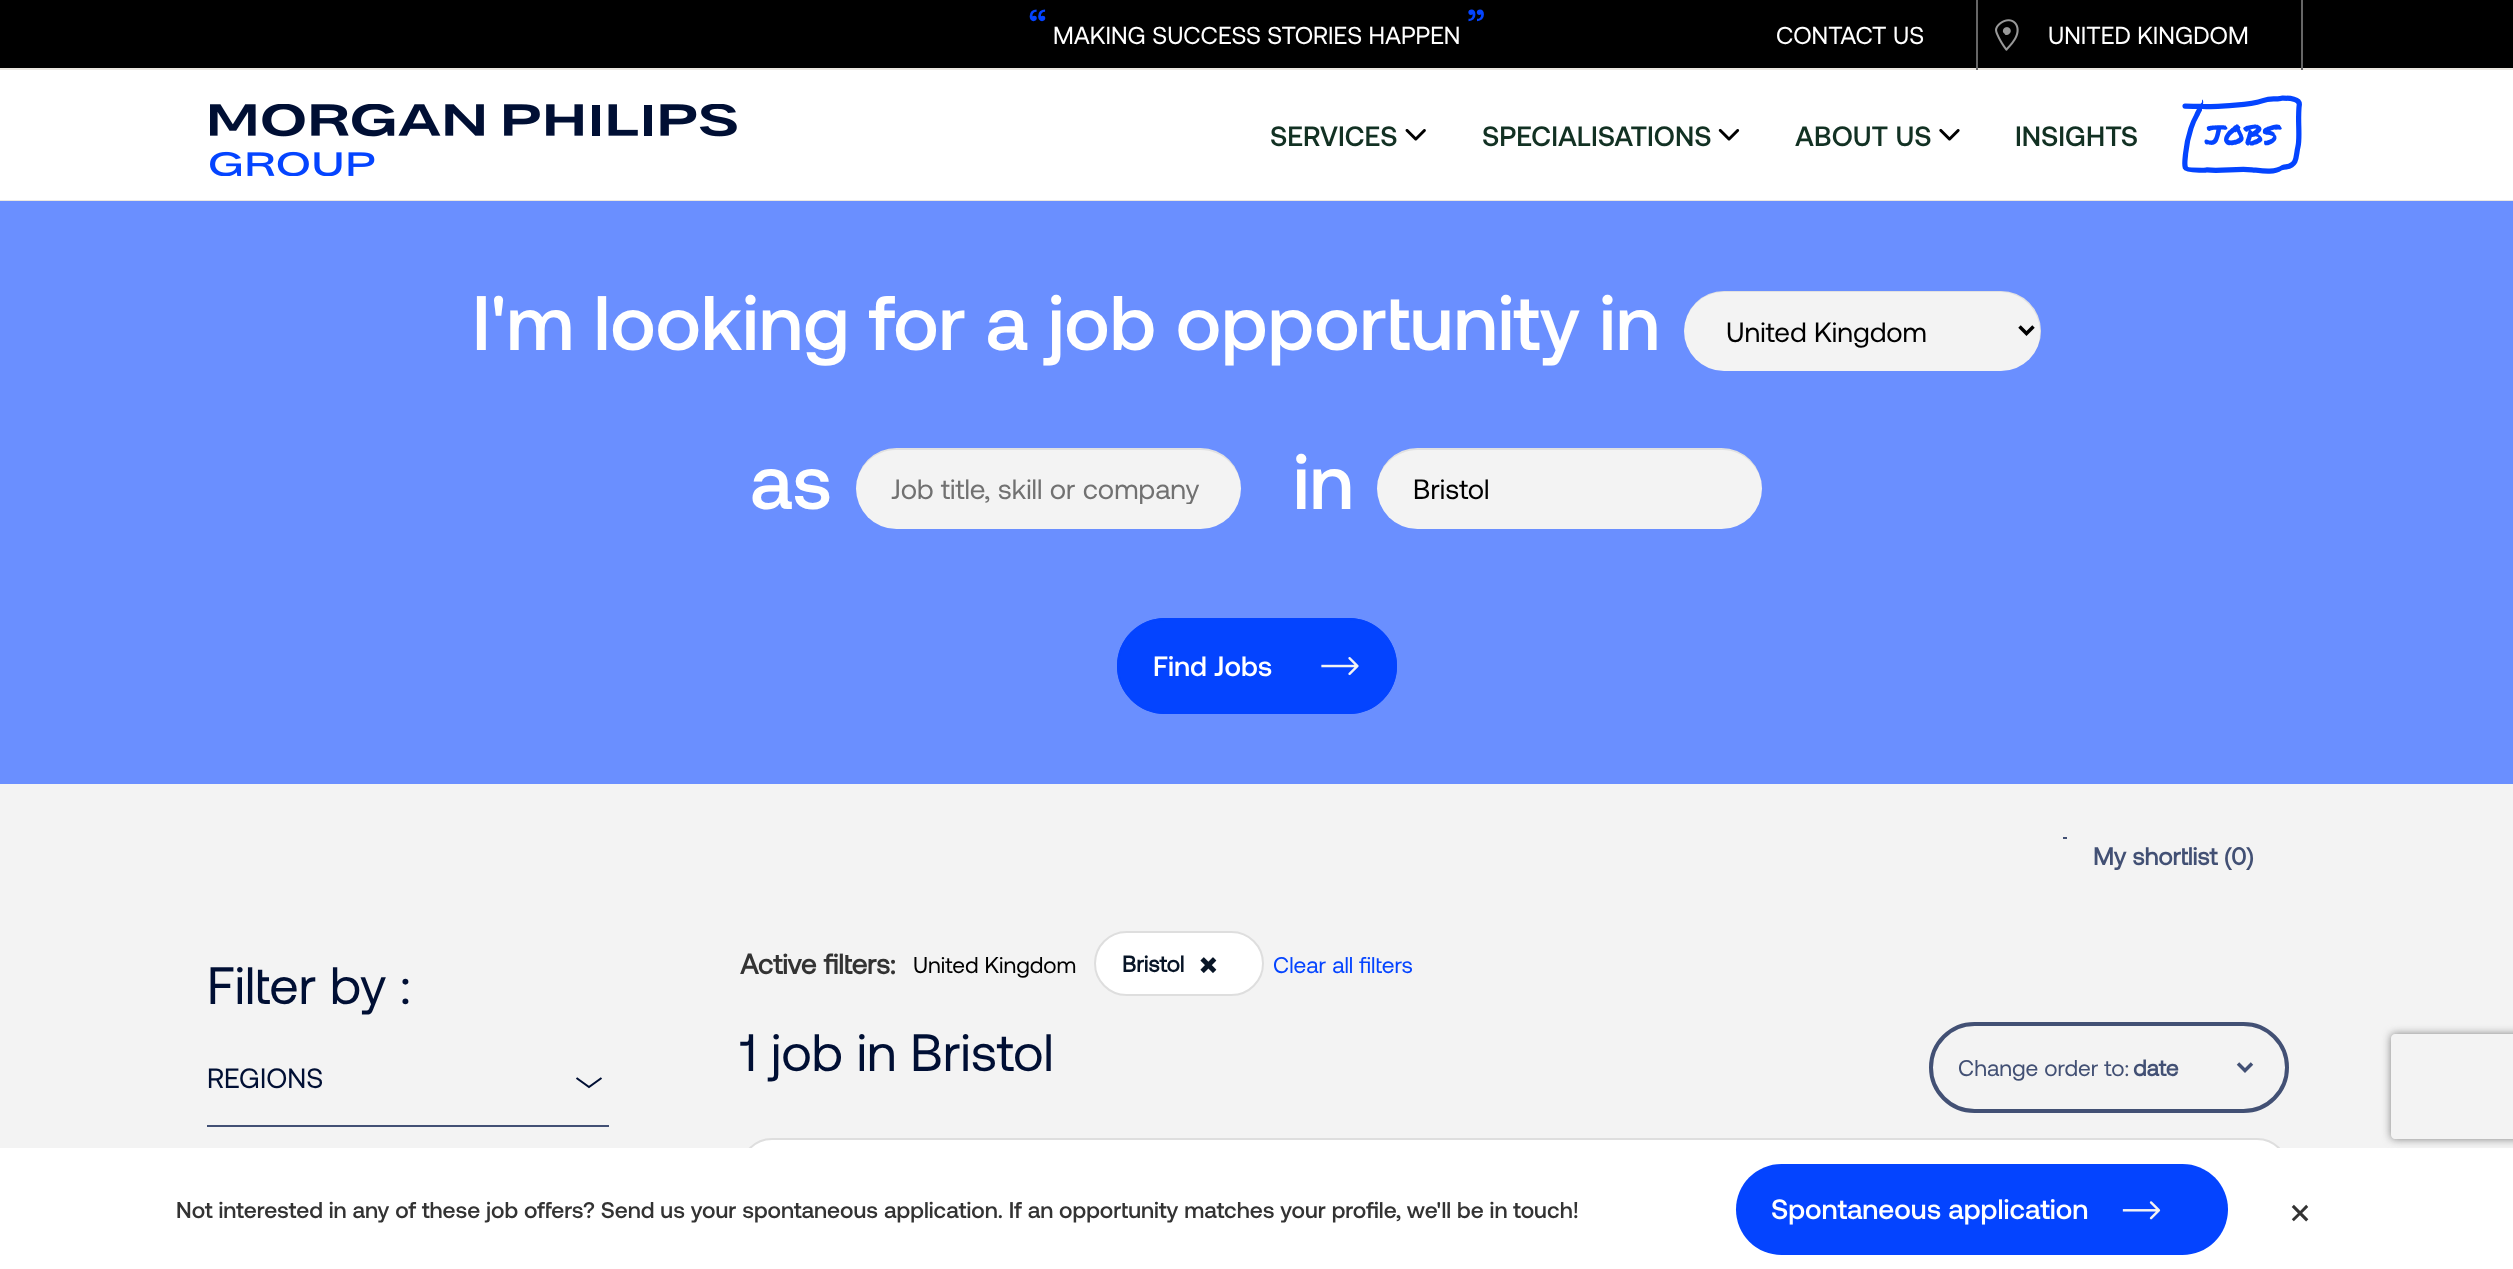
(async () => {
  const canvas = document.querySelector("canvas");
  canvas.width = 2513;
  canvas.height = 1269;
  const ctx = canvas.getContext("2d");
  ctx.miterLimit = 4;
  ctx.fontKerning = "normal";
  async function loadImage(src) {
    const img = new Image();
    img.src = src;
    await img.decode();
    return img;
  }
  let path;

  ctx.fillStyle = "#f3f3f3";
  ctx.fillRect(0, 0, 2513, 1269);
  for (const [x, y, w, h, color] of [
    [0, 0, 2513, 68, "#000000"],
    [0, 68, 2513, 2, "#ebe7e1"],
    [1976, 0, 2, 70, "#666666"],
  ]) {
    ctx.fillStyle = color;
    ctx.fillRect(x, y, w, h);
  }
  ctx.drawImage(await loadImage("img/1.png"), 1995, 19, 24, 32);
  for (const [x, y, w, h, color] of [
    [2301, 0, 2, 70, "#666666"],
    [0, 70, 2513, 130, "#ffffff"],
    [0, 200, 2513, 1, "#ebe7e1"],
  ]) {
    ctx.fillStyle = color;
    ctx.fillRect(x, y, w, h);
  }
  ctx.drawImage(await loadImage("img/2.png"), 210, 104, 527, 72);
  ctx.drawImage(await loadImage("img/3.png"), 1405, 129, 21, 12);
  ctx.drawImage(await loadImage("img/4.png"), 1718, 128, 22, 13);
  ctx.drawImage(await loadImage("img/5.png"), 1939, 128, 21, 13);
  ctx.drawImage(await loadImage("img/6.png"), 2182, 95, 120, 79);
  ctx.fillStyle = "#6a8fff";
  ctx.fillRect(0, 201, 2513, 583);
  ctx.fillStyle = "#f3f3f3";
  ctx.beginPath();
  ctx.roundRect(1684, 291, 357, 80, 40);
  ctx.fill();
  ctx.fillStyle = "rgba(0, 0, 0, 0.07)";
  path = new Path2D("M1724 292H2000C2022 292 2040 310 2040 332C2040 340 2038 347 2035 353C2039 346 2041 339 2041 331C2041 309 2023 291 2001 291H1724C1702 291 1684 309 1684 331V332C1684 310 1702 292 1724 292Z");
  ctx.fill(path);
  path = new Path2D("M2019.5 326.5L2026.5 333.5L2033.5 326.5");
  ctx.strokeStyle = "#000000";
  ctx.lineWidth = 3.5;
  ctx.stroke(path);
  ctx.fillStyle = "#f3f3f3";
  ctx.beginPath();
  ctx.roundRect(856, 448, 385, 81, 40.5);
  ctx.fill();
  ctx.fillStyle = "rgba(0, 0, 0, 0.07)";
  path = new Path2D("M896 450H1200C1223 450 1241 468 1241 489V488C1241 466 1223 448 1200 448H896C874 448 856 466 856 488V489C856 468 874 450 896 450Z");
  ctx.fill(path);
  ctx.fillStyle = "#f3f3f3";
  ctx.beginPath();
  ctx.roundRect(1377, 448, 385, 81, 40.5);
  ctx.fill();
  ctx.fillStyle = "rgba(0, 0, 0, 0.07)";
  path = new Path2D("M1418 450H1722C1744 450 1762 468 1762 489V488C1762 466 1744 448 1722 448H1418C1395 448 1377 466 1377 488V489C1377 468 1395 450 1418 450Z");
  ctx.fill(path);
  ctx.fillStyle = "#0444ff";
  ctx.beginPath();
  ctx.roundRect(1117, 618, 280, 96, 48);
  ctx.fill();
  ctx.drawImage(await loadImage("img/7.png"), 1321, 657, 38, 19);
  ctx.beginPath();
  ctx.roundRect(1118, 619, 278, 94, 47);
  ctx.strokeStyle = "#0444ff";
  ctx.lineWidth = 2;
  ctx.stroke();
  ctx.fillStyle = "#425074";
  ctx.fillRect(2063, 837, 4, 2);
  ctx.fillRect(207, 1125, 402, 2);
  path = new Path2D("M601.5 1078L589 1087L576.5 1078");
  ctx.strokeStyle = "#000f34";
  ctx.lineWidth = 2.1;
  ctx.stroke(path);
  ctx.fillStyle = "#ffffff";
  ctx.beginPath();
  ctx.roundRect(1095, 932, 168, 63, 31.5);
  ctx.fill();
  ctx.strokeStyle = "#dedede";
  ctx.lineWidth = 2;
  ctx.stroke();
  ctx.drawImage(await loadImage("img/8.png"), 1200, 957, 17, 16);
  ctx.beginPath();
  ctx.roundRect(1931, 1024, 356, 87, 43.5);
  ctx.strokeStyle = "#425074";
  ctx.lineWidth = 4;
  ctx.stroke();
  path = new Path2D("M2238 1063.5L2245 1070.5L2252 1063.5");
  ctx.lineWidth = 3.5;
  ctx.stroke(path);
  ctx.beginPath();
  ctx.roundRect(741, 1139, 1547, 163, 31);
  ctx.fill();
  ctx.strokeStyle = "#dedede";
  ctx.lineWidth = 2;
  ctx.stroke();
  ctx.fillRect(0, 1148, 2513, 121);
  ctx.fillStyle = "#0444ff";
  ctx.beginPath();
  ctx.roundRect(1736, 1164, 492, 91, 45.5);
  ctx.fill();
  ctx.drawImage(await loadImage("img/9.png"), 2122, 1201, 39, 19);
  ctx.save();
  path = new Path2D("M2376 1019H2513V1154H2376ZM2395 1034H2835C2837 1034 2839 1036 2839 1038V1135C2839 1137 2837 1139 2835 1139H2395C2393 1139 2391 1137 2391 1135V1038C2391 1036 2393 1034 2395 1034Z");
  ctx.clip(path, "evenodd");
  ctx.fillStyle = "#808080";
  ctx.filter = "blur(4.5px)";
  ctx.beginPath();
  ctx.roundRect(2391, 1034, 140, 105, 4);
  ctx.fill();
  ctx.filter = "none";
  ctx.restore();
  ctx.font = "49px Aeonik";
  ctx.fillText("“", 1028, 44);
  ctx.fillText("”", 1467, 44);
  ctx.font = "24.5px Aeonik";
  ctx.fillStyle = "#ffffff";
  for (const [text, x, y] of [
    ["MAKING SUCCESS STORIES HAPPEN", 1053, 44],
    ["CONTACT US", 1776, 44],
    ["UNITED KINGDOM", 2048, 44],
  ]) {
    ctx.fillText(text, x, y);
  }
  ctx.font = "500 28px Aeonik";
  ctx.fillStyle = "#123123";
  for (const [text, x, y] of [
    ["SERVICES", 1270, 146],
    ["SPECIALISATIONS", 1482, 146],
    ["ABOUT US", 1795, 146],
    ["INSIGHTS", 2015, 146],
  ]) {
    ctx.fillText(text, x, y);
  }
  ctx.font = "28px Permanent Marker";
  ctx.fillStyle = "#0444ff";
  ctx.fillText("JOBS", 2205, 145);
  ctx.font = "500 77px Aeonik";
  ctx.fillStyle = "#ffffff";
  ctx.fillText("I'm looking for a job opportunity in", 472, 350);
  ctx.font = "28px Aeonik";
  ctx.fillStyle = "#000000";
  ctx.fillText("United Kingdom", 1726, 342);
  ctx.font = "500 77px Aeonik";
  ctx.fillStyle = "#ffffff";
  ctx.fillText("as", 750, 509);
  ctx.save();
  ctx.beginPath();
  ctx.rect(891, 471, 315, 33);
  ctx.clip();
  ctx.font = "28px Aeonik";
  ctx.fillStyle = "#717171";
  ctx.fillText("Job title, skill or company", 891, 499);
  ctx.restore();
  ctx.fillText("in", 1293, 509);
  ctx.font = "28px Aeonik";
  ctx.fillStyle = "#000000";
  ctx.fillText("Bristol", 1413, 499);
  ctx.font = "500 28px Aeonik";
  ctx.fillStyle = "#ffffff";
  ctx.fillText("Find Jobs", 1153, 676);
  ctx.font = "bold 24.5px Aeonik";
  ctx.fillStyle = "#425074";
  ctx.fillText("My shortlist (0)", 2093, 865);
  ctx.font = "52.5px Aeonik";
  ctx.fillStyle = "#000f34";
  ctx.fillText("Filter by :", 207, 1004);
  ctx.font = "28px Aeonik";
  ctx.fillText("REGIONS", 207, 1088);
  ctx.font = "bold 28px Aeonik";
  ctx.fillStyle = "#333333";
  ctx.fillText("Active filters:", 740, 974);
  ctx.font = "22.75px Aeonik";
  ctx.fillStyle = "#000000";
  ctx.fillText("United Kingdom", 913, 973);
  ctx.font = "bold 22.75px Aeonik";
  ctx.fillStyle = "#081527";
  ctx.fillText("Bristol", 1122, 972);
  ctx.font = "22.75px Aeonik";
  ctx.fillStyle = "#0444ff";
  ctx.fillText("Clear all filters", 1273, 973);
  ctx.font = "52.5px Aeonik";
  ctx.fillStyle = "#000f34";
  ctx.fillText("1 job in Bristol", 740, 1071);
  ctx.font = "22.75px Aeonik";
  ctx.fillStyle = "#425074";
  ctx.fillText("Change order to:", 1958, 1076);
  ctx.font = "bold 22.75px Aeonik";
  ctx.fillText("date", 2133, 1076);
  ctx.font = "500 22.75px Aeonik";
  ctx.fillStyle = "#333333";
  ctx.fillText("Not interested in any of these job offers? Send us your spontaneous application. If an opportunity matches your profile, we'll be in touch!", 176, 1218);
  ctx.font = "500 28px Aeonik";
  ctx.fillStyle = "#ffffff";
  ctx.fillText("Spontaneous application", 1771, 1219);
  ctx.font = "42px Aeonik";
  ctx.fillStyle = "#333333";
  ctx.fillText("×", 2289, 1225);
})();
